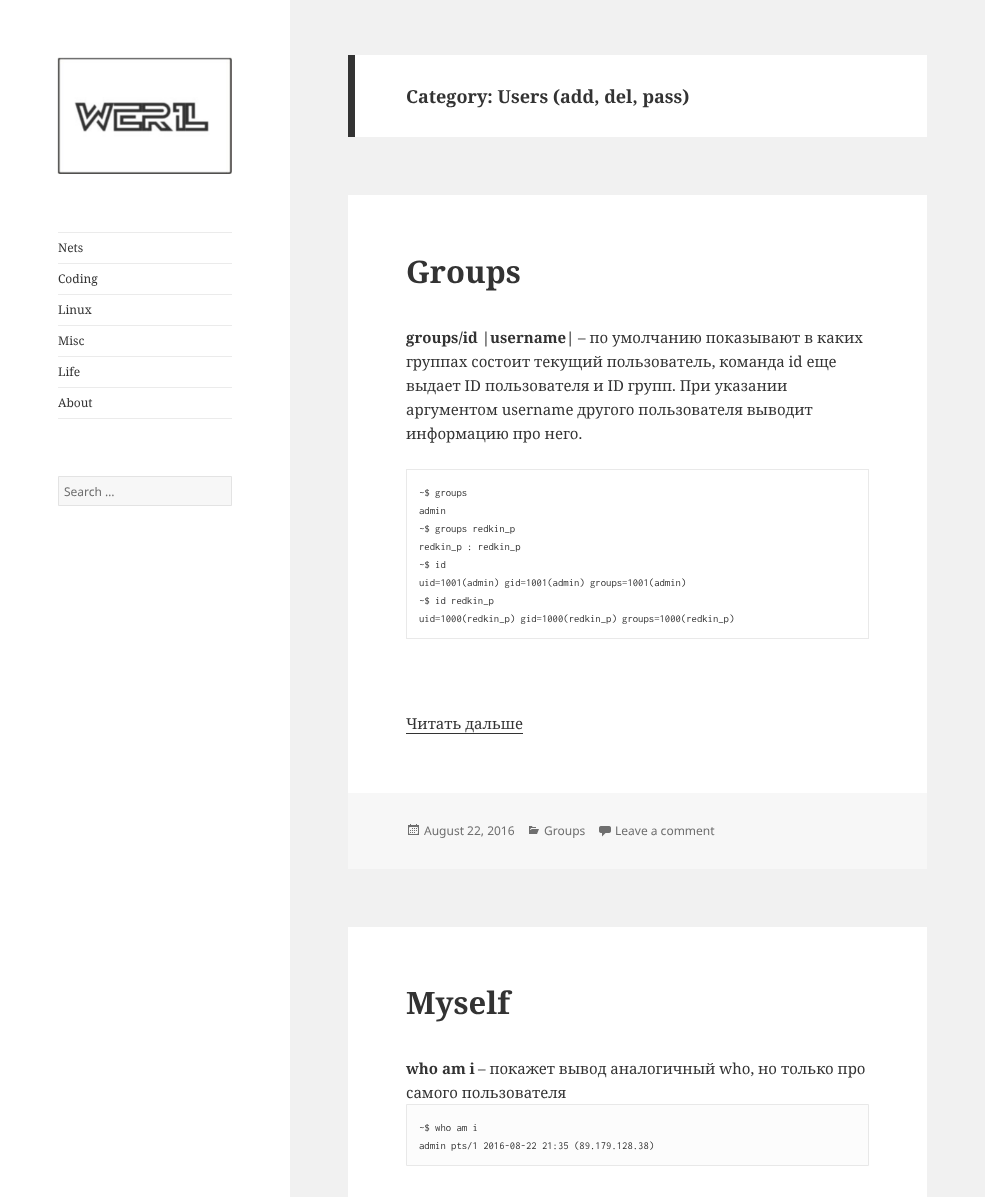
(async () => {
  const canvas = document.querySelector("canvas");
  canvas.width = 985;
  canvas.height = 1197;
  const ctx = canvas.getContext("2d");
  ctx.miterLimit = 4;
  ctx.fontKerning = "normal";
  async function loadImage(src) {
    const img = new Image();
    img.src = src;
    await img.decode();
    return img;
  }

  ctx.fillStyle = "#f1f1f1";
  ctx.fillRect(0, 0, 985, 1197);
  ctx.fillStyle = "#ffffff";
  ctx.fillRect(0, 0, 290, 1197);
  ctx.drawImage(await loadImage("img/1.png"), 57, 57, 175, 117);
  for (const [x, y, w, h, color] of [
    [58, 232, 174, 1, "#ebebeb"],
    [58, 418, 174, 1, "#ebebeb"],
    [58, 263, 174, 1, "#ebebeb"],
    [58, 294, 174, 1, "#ebebeb"],
    [58, 325, 174, 1, "#ebebeb"],
    [58, 356, 174, 1, "#ebebeb"],
    [58, 387, 174, 1, "#ebebeb"],
  ]) {
    ctx.fillStyle = color;
    ctx.fillRect(x, y, w, h);
  }
  ctx.fillStyle = "#f7f7f7";
  ctx.beginPath();
  ctx.rect(58.5, 476.5, 173, 29);
  ctx.fill();
  ctx.strokeStyle = "#e3e3e3";
  ctx.stroke();
  for (const [x, y, w, h, color] of [
    [355, 55, 572, 82, "#ffffff"],
    [348, 55, 7, 82, "#333333"],
    [348, 195, 579, 598, "#ffffff"],
  ]) {
    ctx.fillStyle = color;
    ctx.fillRect(x, y, w, h);
  }
  ctx.strokeStyle = "#e9e9e9";
  ctx.strokeRect(406.5, 469.5, 462, 169);
  ctx.fillStyle = "#333333";
  ctx.fillRect(406, 733, 117, 1);
  ctx.fillStyle = "#f7f7f7";
  ctx.fillRect(348, 793, 579, 76);
  ctx.drawImage(await loadImage("img/2.png"), 408, 824, 11, 11);
  ctx.drawImage(await loadImage("img/3.png"), 529, 826, 10, 8);
  ctx.drawImage(await loadImage("img/4.png"), 599, 826, 12, 11);
  ctx.fillStyle = "#ffffff";
  ctx.fillRect(348, 927, 579, 270);
  ctx.fillStyle = "#fcfcfc";
  ctx.beginPath();
  ctx.rect(406.5, 1104.5, 462, 61);
  ctx.fill();
  ctx.strokeStyle = "#e8e8e8";
  ctx.stroke();
  ctx.font = "12px Noto Serif";
  ctx.fillStyle = "#333333";
  for (const [text, x, y] of [
    ["Nets", 58, 252],
    ["Coding", 58, 283],
    ["Linux", 58, 314],
    ["Misc", 58, 345],
    ["Life", 58, 376],
    ["About", 58, 407],
  ]) {
    ctx.fillText(text, x, y);
  }
  ctx.font = "12px Noto Sans";
  ctx.fillStyle = "#6e6e6e";
  ctx.fillText("Search …", 64, 496);
  ctx.font = "bold 18px Noto Serif";
  ctx.fillStyle = "#333333";
  ctx.fillText("Category: Users (add, del, pass)", 406, 103);
  ctx.font = "bold 31px Noto Serif";
  ctx.fillText("Groups", 406, 283);
  ctx.font = "bold 15px Noto Serif";
  ctx.fillText("groups/id |username|", 406, 343);
  ctx.font = "15px Noto Serif";
  for (const [text, x, y] of [
    ["– по умолчанию показывают в каких", 578, 343],
    ["группах состоит текущий пользователь, команда id еще", 406, 367],
    ["выдает ID пользователя и ID групп. При указании", 406, 391],
    ["аргументом username другого пользователя выводит", 406, 415],
    ["информацию про него.", 406, 439],
  ]) {
    ctx.fillText(text, x, y);
  }
  ctx.font = "10.7px Inconsolata";
  for (const [text, x, y] of [
    ["~$ groups", 419, 496],
    ["admin", 419, 514],
    ["~$ groups redkin_p", 419, 532],
    ["redkin_p : redkin_p", 419, 550],
    ["~$ id", 419, 568],
    ["uid=1001(admin) gid=1001(admin) groups=1001(admin)", 419, 586],
    ["~$ id redkin_p", 419, 604],
    ["uid=1000(redkin_p) gid=1000(redkin_p) groups=1000(redkin_p)", 419, 622],
  ]) {
    ctx.fillText(text, x, y);
  }
  ctx.font = "15px Noto Serif";
  ctx.fillText("Читать дальше", 406, 729);
  ctx.font = "12px Noto Sans";
  ctx.fillStyle = "#6e6e6e";
  for (const [text, x, y] of [
    ["August 22, 2016", 424, 835],
    ["Groups", 544, 835],
    ["Leave a comment", 615, 835],
  ]) {
    ctx.fillText(text, x, y);
  }
  ctx.font = "bold 31px Noto Serif";
  ctx.fillStyle = "#333333";
  ctx.fillText("Myself", 406, 1014);
  ctx.font = "bold 15px Noto Serif";
  ctx.fillText("who am i", 406, 1074);
  ctx.font = "15px Noto Serif";
  ctx.fillText("– покажет вывод аналогичный who, но только про", 478, 1074);
  ctx.fillText("самого пользователя", 406, 1098);
  ctx.font = "10.7px Inconsolata";
  ctx.fillText("~$ who am i", 419, 1131);
  ctx.fillText("admin pts/1 2016-08-22 21:35 (89.179.128.38)", 419, 1149);
})();
